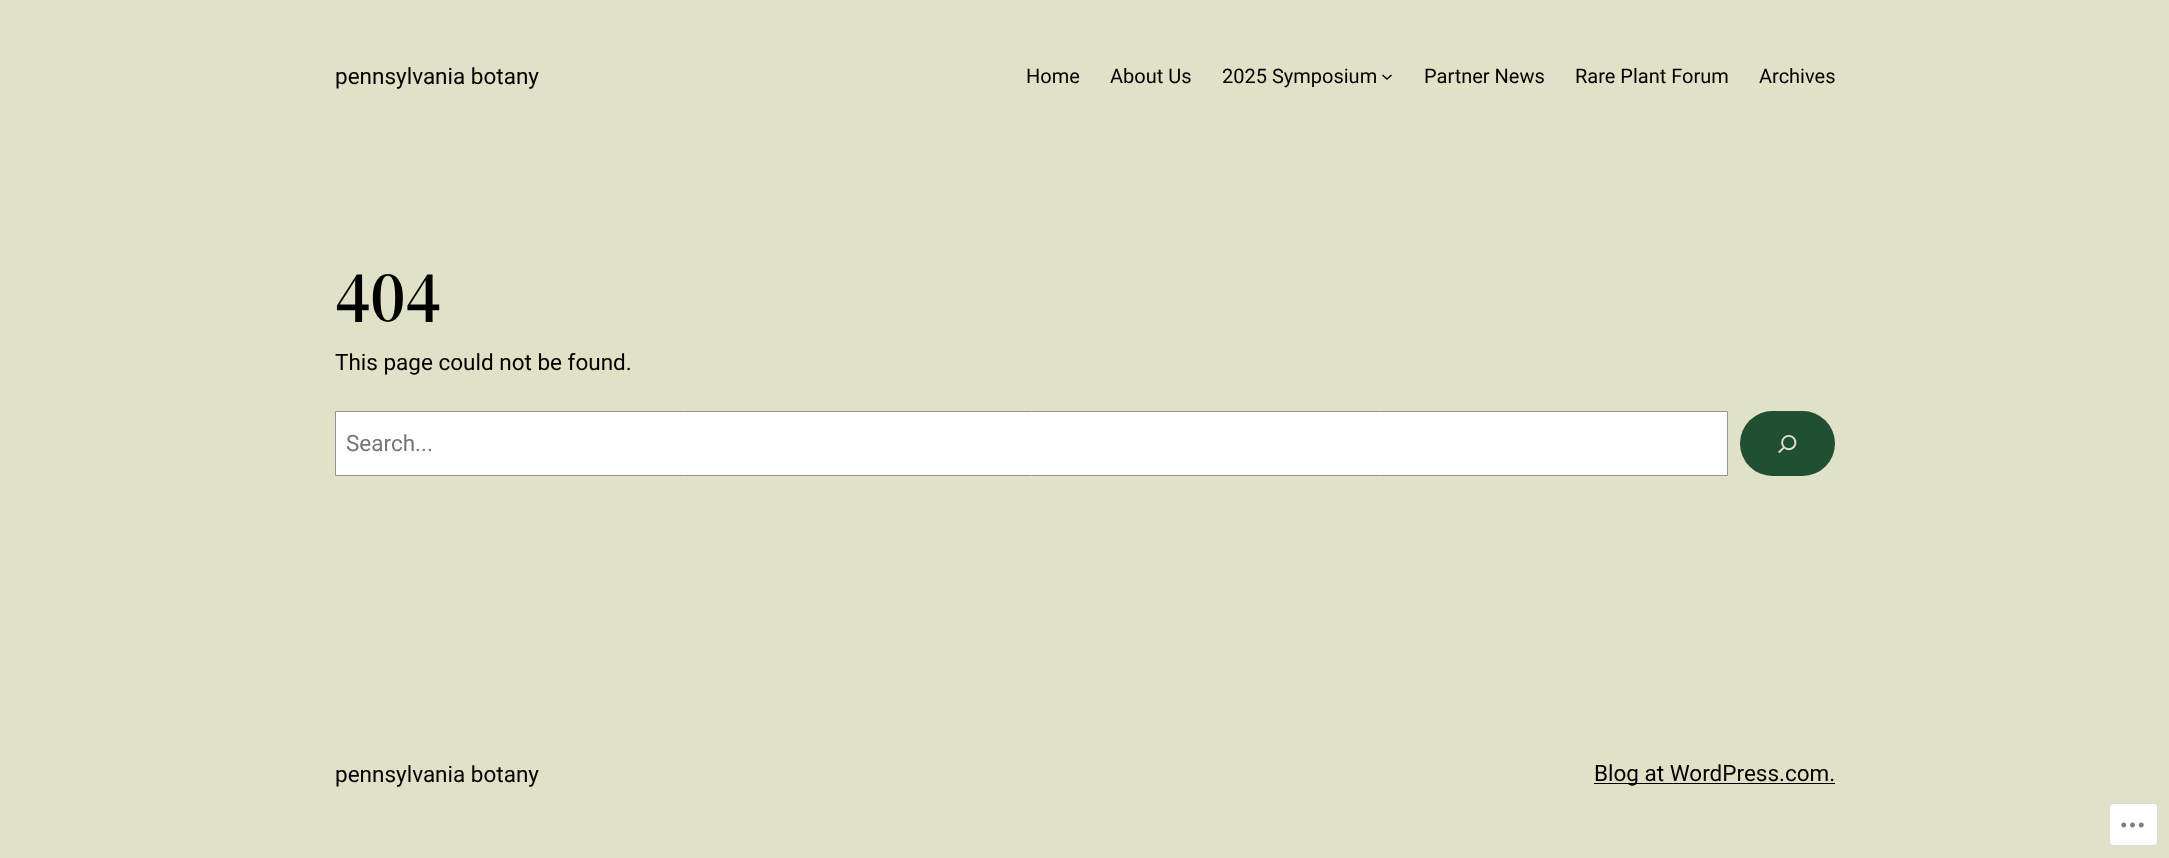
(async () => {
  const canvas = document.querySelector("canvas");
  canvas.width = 2169;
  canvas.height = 858;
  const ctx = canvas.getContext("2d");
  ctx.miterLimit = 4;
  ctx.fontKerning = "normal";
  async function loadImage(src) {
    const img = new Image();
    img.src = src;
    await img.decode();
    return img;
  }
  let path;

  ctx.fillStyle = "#e1e1c7";
  ctx.fillRect(0, 0, 2169, 858);
  path = new Path2D("M1382.5 75L1387 79L1391.5 75");
  ctx.strokeStyle = "#000000";
  ctx.lineWidth = 1.5;
  ctx.stroke(path);
  ctx.fillStyle = "#ffffff";
  ctx.beginPath();
  ctx.rect(335.5, 411.5, 1392, 64);
  ctx.fill();
  ctx.strokeStyle = "#949494";
  ctx.lineWidth = 1;
  ctx.stroke();
  ctx.fillStyle = "#214f31";
  ctx.beginPath();
  ctx.roundRect(1740, 411, 95, 65, 32.5);
  ctx.fill();
  ctx.drawImage(await loadImage("img/1.png"), 1778, 435, 19, 19);
  ctx.fillStyle = "#000000";
  ctx.fillRect(1594, 783, 241, 1);
  ctx.fillStyle = "#fefefe";
  ctx.beginPath();
  ctx.roundRect(2109.5, 803.5, 48, 42, 3.5);
  ctx.fill();
  ctx.strokeStyle = "#dcdcde";
  ctx.stroke();
  ctx.drawImage(await loadImage("img/2.png"), 2121, 822, 23, 6);
  ctx.font = "22.5px Roboto";
  ctx.fillStyle = "#000000";
  ctx.fillText("pennsylvania botany", 335, 84);
  ctx.font = "20px Roboto";
  for (const [text, x, y] of [
    ["Home", 1026, 83],
    ["About Us", 1110, 83],
    ["2025 Symposium", 1222, 83],
    ["Partner News", 1424, 83],
    ["Rare Plant Forum", 1575, 83],
    ["Archives", 1759, 83],
  ]) {
    ctx.fillText(text, x, y);
  }
  ctx.font = "600 72px 'Source Serif 4'";
  ctx.fillText("404", 335, 321);
  ctx.font = "22.5px Roboto";
  ctx.fillText("This page could not be found.", 335, 370);
  ctx.fillStyle = "#757575";
  ctx.fillText("Search...", 346, 451);
  ctx.fillStyle = "#000000";
  ctx.fillText("pennsylvania botany", 335, 782);
  ctx.fillText("Blog at WordPress.com.", 1594, 781);
})();
